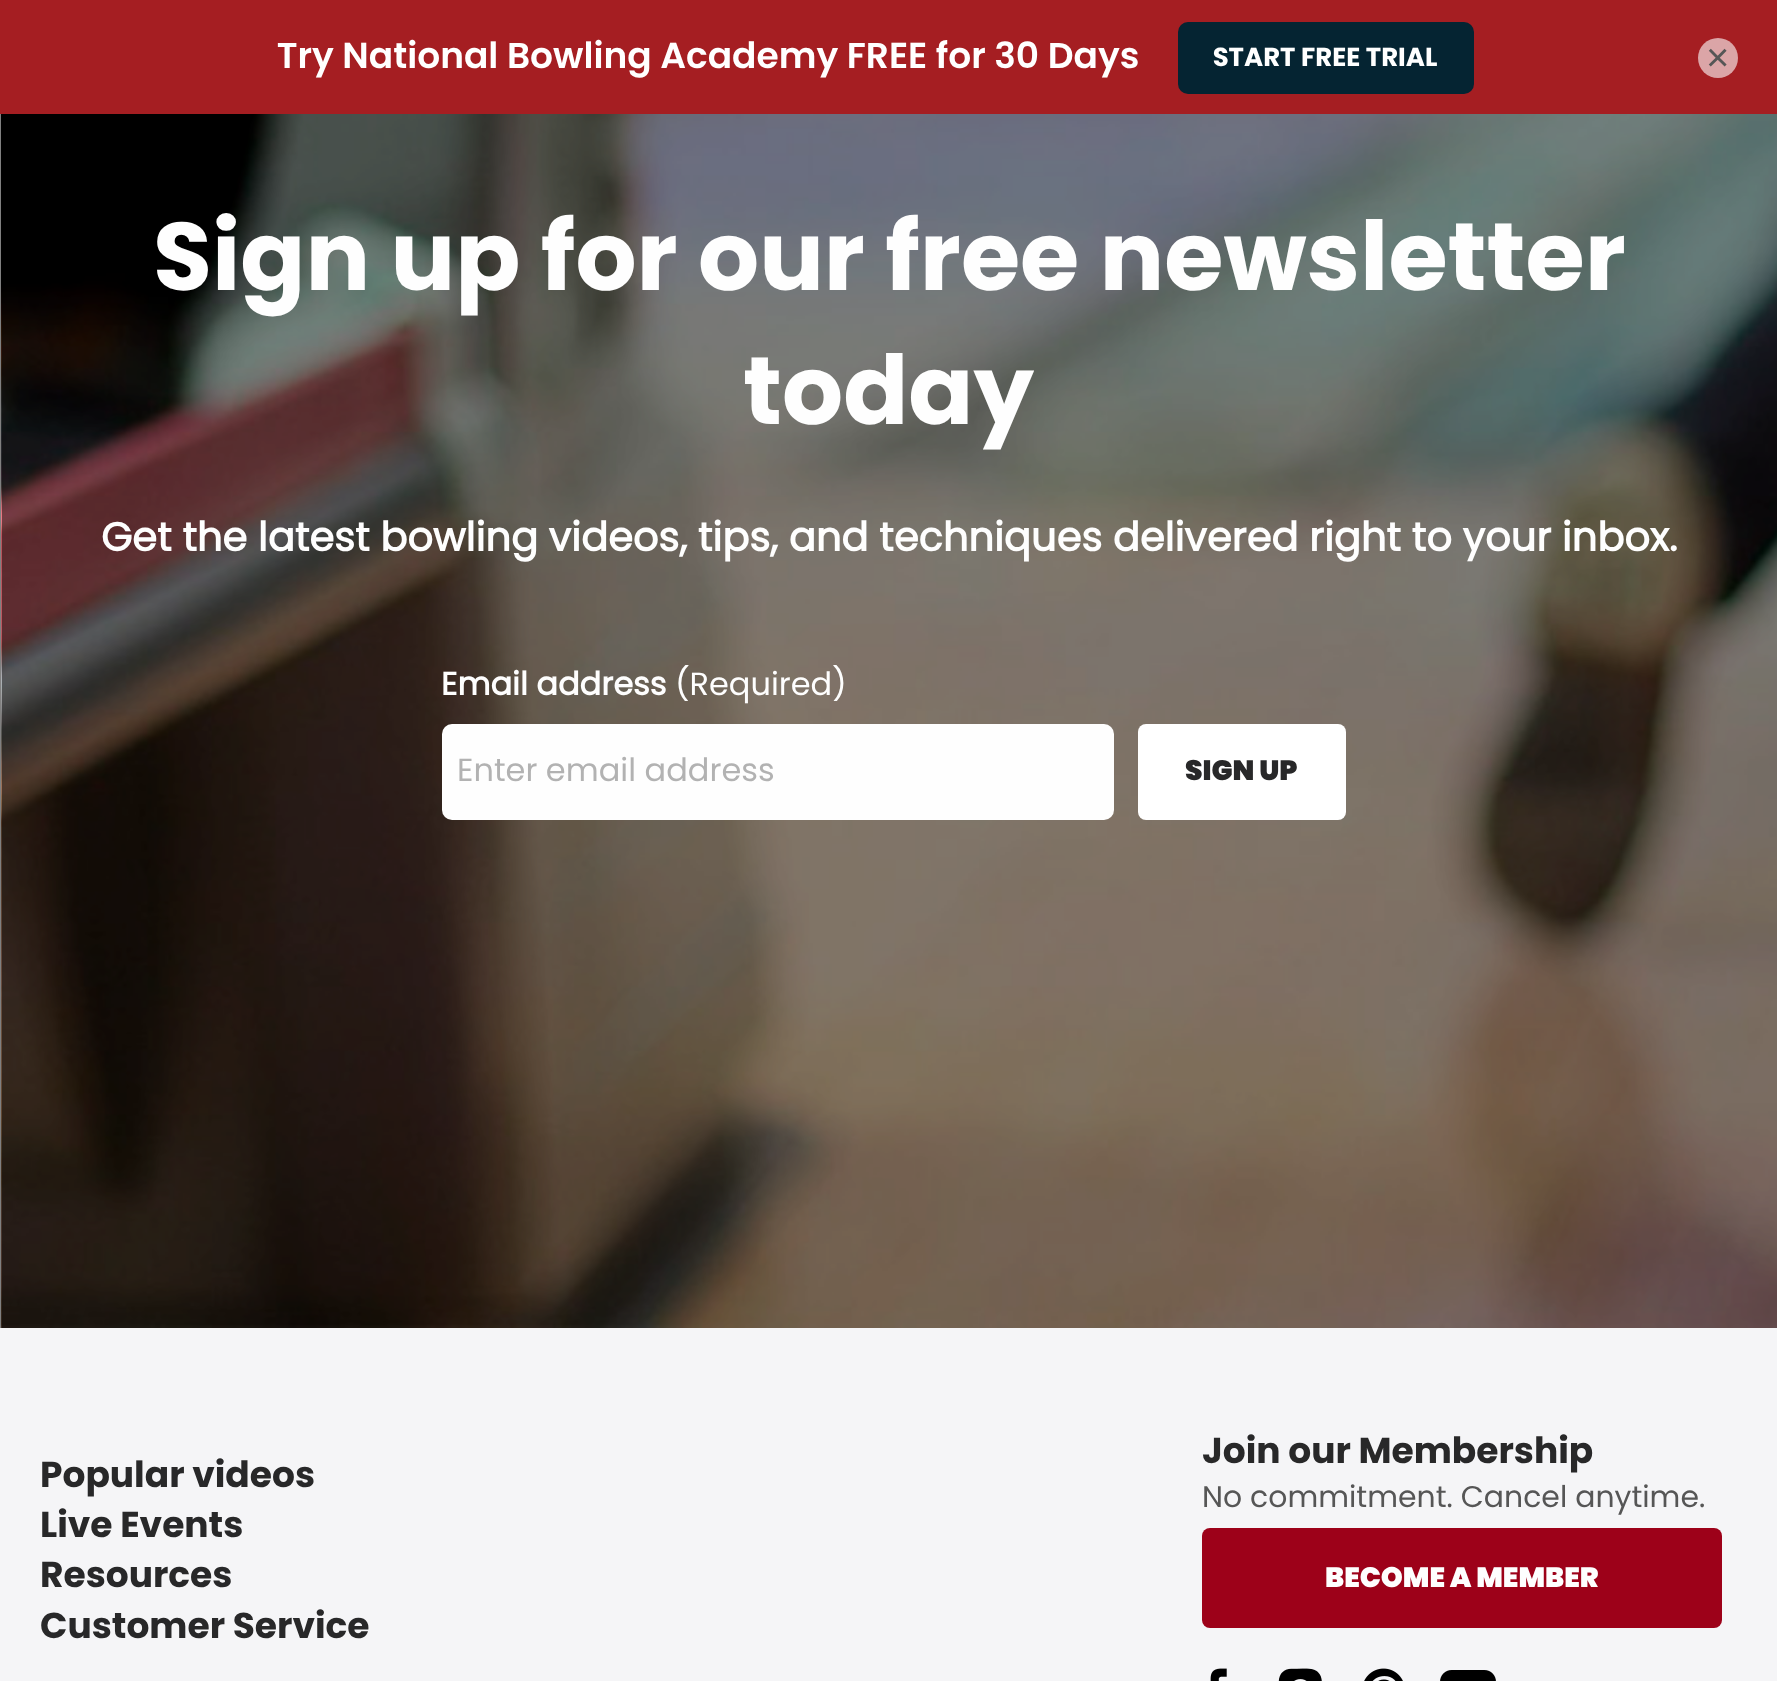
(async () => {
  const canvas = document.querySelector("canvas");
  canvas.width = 1777;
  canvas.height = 1681;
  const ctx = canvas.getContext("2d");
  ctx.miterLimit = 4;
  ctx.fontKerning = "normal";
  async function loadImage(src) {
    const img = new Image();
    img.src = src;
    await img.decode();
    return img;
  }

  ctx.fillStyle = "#f5f5f7";
  ctx.fillRect(0, 0, 1777, 1681);
  ctx.drawImage(await loadImage("img/1.png"), 0, 0, 1777, 114);
  ctx.fillStyle = "#dba5a7";
  ctx.beginPath();
  ctx.arc(1718, 58, 20, 0, Math.PI * 2);
  ctx.fill();
  ctx.fillStyle = "#808080";
  ctx.fillRect(0, 114, 1, 1214);
  ctx.drawImage(await loadImage("img/2.png"), 1, 114, 1776, 1214);
  ctx.fillStyle = "#fefefe";
  ctx.beginPath();
  ctx.roundRect(442, 724, 672, 96, 10);
  ctx.fill();
  ctx.fillStyle = "#ffffff";
  ctx.beginPath();
  ctx.roundRect(1138, 724, 208, 96, 8);
  ctx.fill();
  ctx.fillStyle = "#9d0119";
  ctx.beginPath();
  ctx.roundRect(1202, 1528, 520, 100, 8);
  ctx.fill();
  ctx.drawImage(await loadImage("img/3.png"), 1210, 1668, 17, 13);
  ctx.drawImage(await loadImage("img/4.png"), 1278, 1668, 44, 13);
  ctx.drawImage(await loadImage("img/5.png"), 1364, 1668, 39, 13);
  ctx.drawImage(await loadImage("img/6.png"), 1440, 1670, 56, 11);
  ctx.font = "40px Liberation Sans";
  ctx.fillStyle = "#565656";
  ctx.fillText("×", 1706, 71);
  ctx.font = "bold 96px Poppins";
  ctx.fillStyle = "#fefefe";
  ctx.fillText("Sign up for our free newsletter", 153, 290);
  ctx.fillText("today", 743, 424);
  ctx.font = "bold 40px 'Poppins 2'";
  ctx.fillText("Get the latest bowling videos, tips, and techniques delivered right to your inbox.", 101, 551);
  ctx.font = "bold 32px 'Poppins 2'";
  ctx.fillText("Email address", 441, 695);
  ctx.font = "32px Poppins";
  ctx.fillText("(Required)", 675, 695);
  ctx.fillStyle = "#b2b2b2";
  ctx.fillText("Enter email address", 457, 781);
  ctx.font = "900 28px Poppins";
  ctx.fillStyle = "#282829";
  ctx.fillText("SIGN UP", 1185, 780);
  ctx.font = "bold 36px Poppins";
  for (const [text, x, y] of [
    ["Popular videos", 40, 1487],
    ["Live Events", 40, 1537],
    ["Resources", 40, 1587],
    ["Customer Service", 40, 1638],
    ["Join our Membership", 1202, 1463],
  ]) {
    ctx.fillText(text, x, y);
  }
  ctx.font = "29.9px Poppins";
  ctx.fillStyle = "#565656";
  ctx.fillText("No commitment. Cancel anytime.", 1202, 1507);
  ctx.font = "900 28px Poppins";
  ctx.fillStyle = "#fefefe";
  ctx.fillText("BECOME A MEMBER", 1325, 1587);
})();
